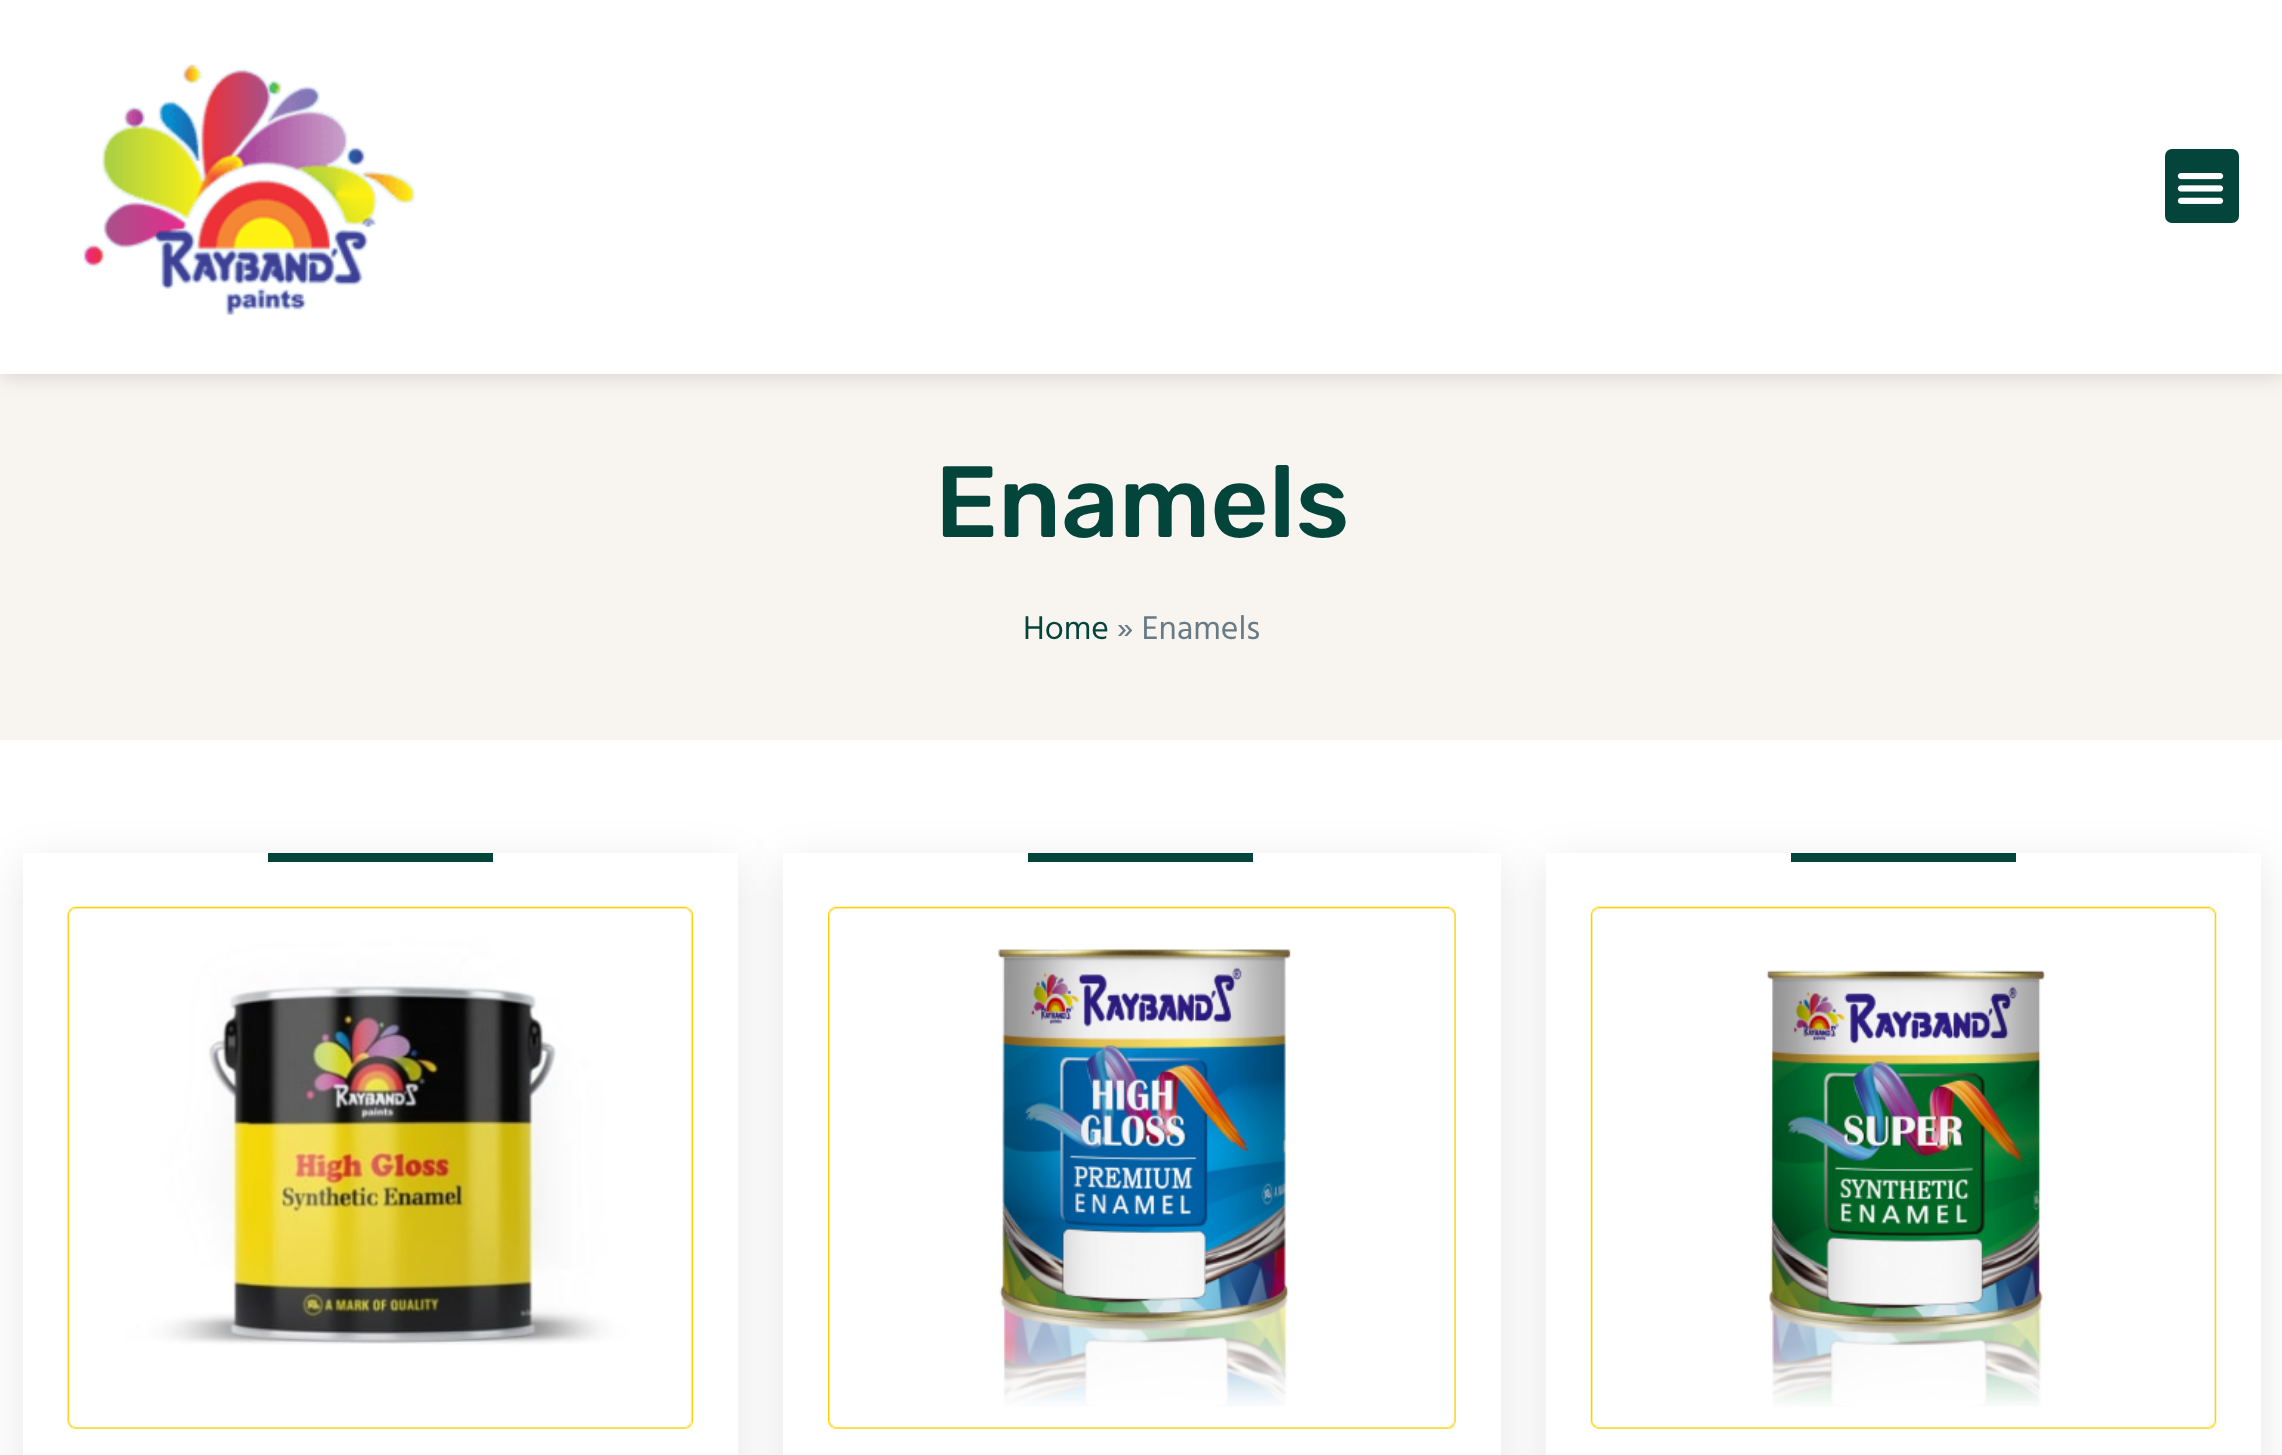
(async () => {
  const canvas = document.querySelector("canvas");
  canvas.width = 2282;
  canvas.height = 1455;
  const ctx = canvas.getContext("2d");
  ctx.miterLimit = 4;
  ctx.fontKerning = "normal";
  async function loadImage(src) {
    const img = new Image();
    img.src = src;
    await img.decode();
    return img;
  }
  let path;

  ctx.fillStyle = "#ffffff";
  ctx.fillRect(0, 0, 2282, 1455);
  ctx.fillStyle = "#f8f4ef";
  ctx.fillRect(0, 374, 2282, 366);
  ctx.fillStyle = "rgba(0, 0, 0, 0.16)";
  ctx.filter = "blur(11px)";
  ctx.beginPath();
  ctx.rect(0, 0, 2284, 374);
  ctx.fill();
  ctx.filter = "none";
  ctx.fillStyle = "#ffffff";
  ctx.fillRect(0, 0, 2282, 374);
  ctx.drawImage(await loadImage("img/1.png"), 82, 64, 334, 252);
  ctx.fillStyle = "#03443b";
  ctx.beginPath();
  ctx.roundRect(2165, 149, 74, 74, 7);
  ctx.fill();
  ctx.drawImage(await loadImage("img/2.png"), 2177, 173, 47, 31);
  ctx.save();
  path = new Path2D("M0 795H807V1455H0ZM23 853H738V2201H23Z");
  ctx.clip(path, "evenodd");
  ctx.fillStyle = "rgba(0, 0, 0, 0.1)";
  ctx.filter = "blur(22.5px)";
  ctx.beginPath();
  ctx.rect(23, 864, 715, 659);
  ctx.fill();
  ctx.filter = "none";
  ctx.restore();
  ctx.fillRect(268, 853, 225, 9);
  ctx.drawImage(await loadImage("img/3.png"), 67, 906, 626, 523);
  ctx.fillStyle = "rgba(0, 0, 0, 0.1)";
  ctx.filter = "blur(22.5px)";
  ctx.beginPath();
  ctx.rect(783, 864, 718, 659);
  ctx.fill();
  ctx.filter = "none";
  ctx.fillStyle = "#ffffff";
  ctx.fillRect(783, 853, 718, 602);
  ctx.fillStyle = "#03443b";
  ctx.fillRect(1028, 853, 225, 9);
  ctx.drawImage(await loadImage("img/4.png"), 828, 906, 628, 523);
  ctx.save();
  path = new Path2D("M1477 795H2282V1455H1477ZM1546 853H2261V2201H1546Z");
  ctx.clip(path, "evenodd");
  ctx.fillStyle = "rgba(0, 0, 0, 0.1)";
  ctx.filter = "blur(22.5px)";
  ctx.beginPath();
  ctx.rect(1546, 864, 715, 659);
  ctx.fill();
  ctx.filter = "none";
  ctx.restore();
  ctx.fillRect(1791, 853, 225, 9);
  ctx.drawImage(await loadImage("img/5.png"), 1590, 906, 627, 523);
  ctx.font = "500 101.25px Rubik";
  ctx.fillText("Enamels", 935, 537);
  ctx.font = "33.75px Hind";
  ctx.fillText("Home", 1023, 639);
  ctx.fillStyle = "#677a85";
  ctx.fillText("» Enamels", 1117, 639);
})();
